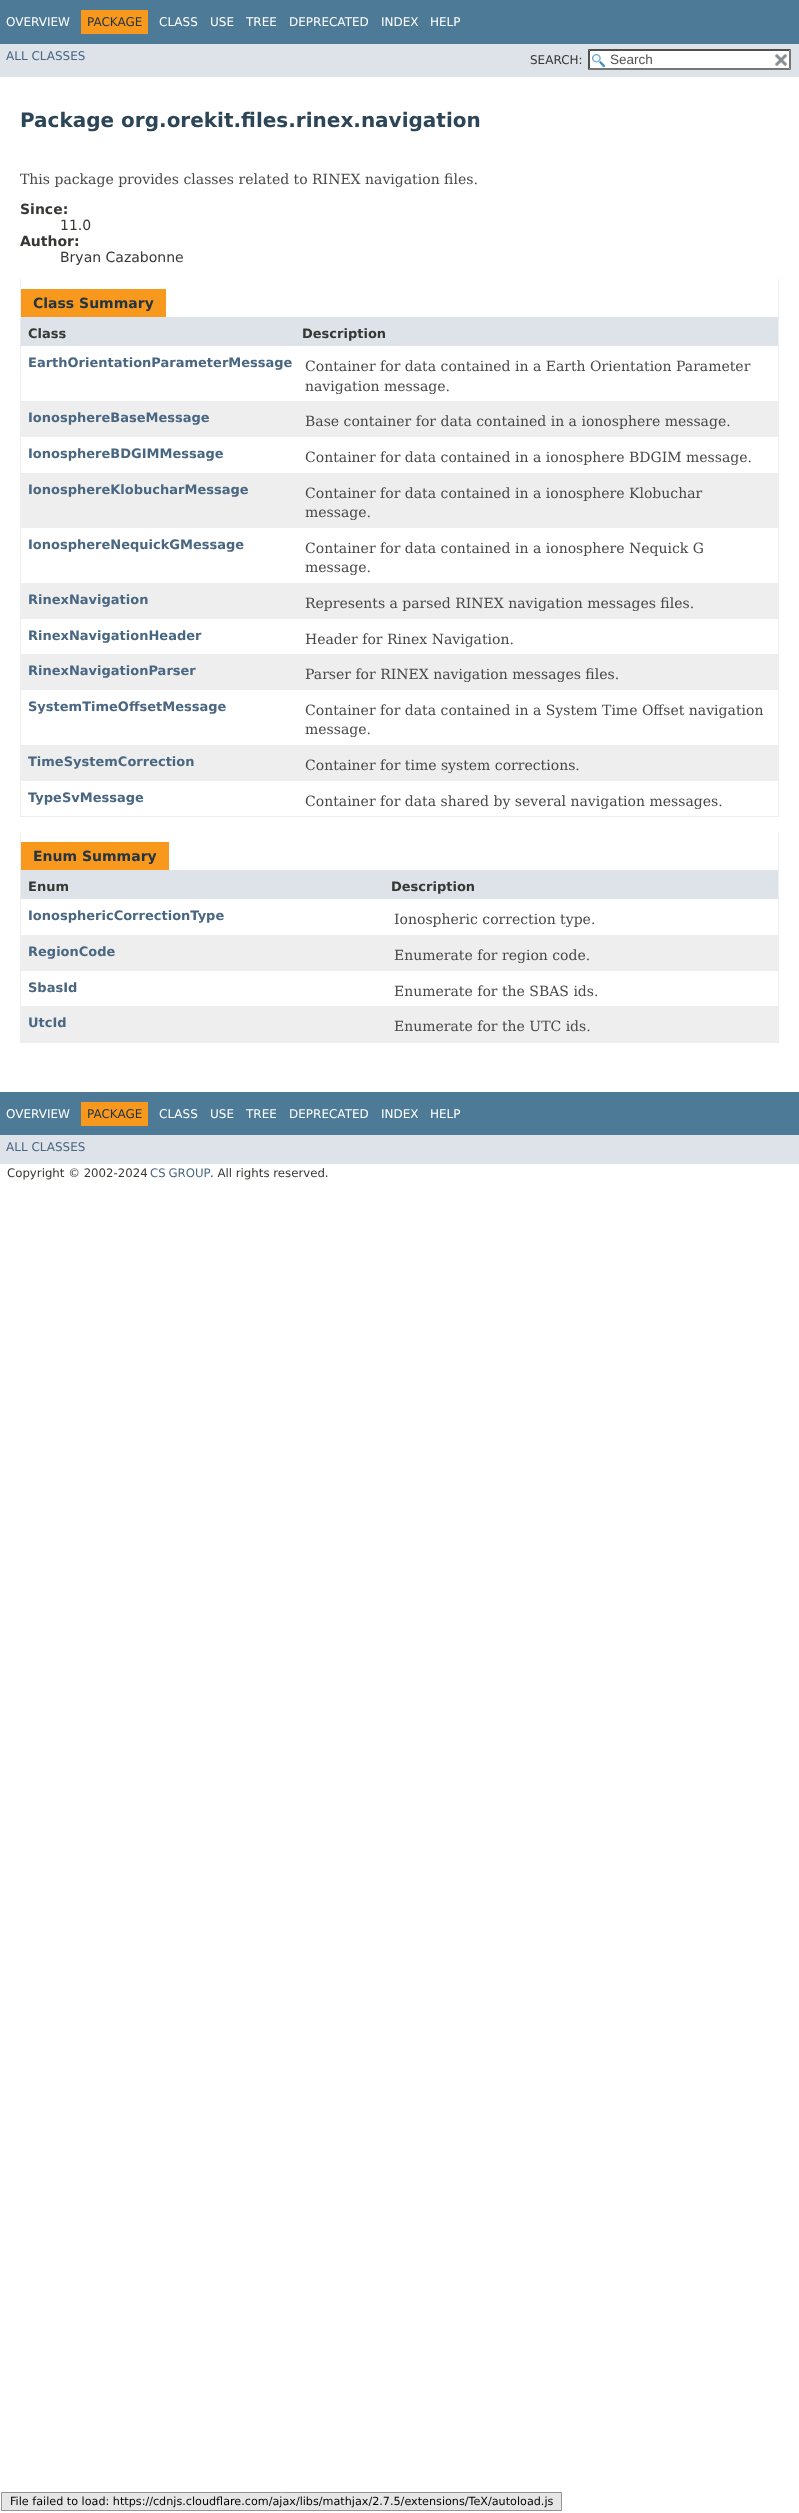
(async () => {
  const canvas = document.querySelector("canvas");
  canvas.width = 799;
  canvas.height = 2513;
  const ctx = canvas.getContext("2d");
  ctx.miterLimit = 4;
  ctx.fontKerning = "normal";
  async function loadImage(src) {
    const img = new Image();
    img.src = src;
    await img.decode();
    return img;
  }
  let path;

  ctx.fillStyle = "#ffffff";
  ctx.fillRect(0, 0, 799, 2513);
  for (const [x, y, w, h, color] of [
    [0, 0, 799, 44, "#4d7a97"],
    [81, 10, 67, 24, "#f8981d"],
    [0, 44, 799, 33, "#dee3e9"],
    [588, 49, 203, 21, "#ffffff"],
  ]) {
    ctx.fillStyle = color;
    ctx.fillRect(x, y, w, h);
  }
  ctx.drawImage(await loadImage("img/1.png"), 592, 54, 13, 13);
  ctx.fillStyle = "#4f4f4f";
  path = new Path2D("M588 49H791L789 51H590Z");
  ctx.fill(path);
  ctx.fillStyle = "#767676";
  path = new Path2D("M791 49V70L789 68V51Z");
  ctx.fill(path);
  path = new Path2D("M791 70H588L590 68H789Z");
  ctx.fill(path);
  ctx.fillStyle = "#4f4f4f";
  path = new Path2D("M588 70V49L590 51V68Z");
  ctx.fill(path);
  ctx.drawImage(await loadImage("img/2.png"), 774, 54, 14, 12);
  for (const [x, y, w, h, color] of [
    [778, 279, 1, 538, "#eeeeee"],
    [20, 816, 759, 1, "#eeeeee"],
    [20, 279, 1, 538, "#eeeeee"],
    [21, 289, 145, 28, "#f8981d"],
    [21, 317, 757, 29, "#dee3e9"],
    [21, 401, 757, 36, "#eeeeef"],
    [21, 473, 757, 55, "#eeeeef"],
    [21, 583, 757, 36, "#eeeeef"],
    [21, 654, 757, 36, "#eeeeef"],
    [21, 745, 757, 36, "#eeeeef"],
    [778, 832, 1, 211, "#eeeeee"],
    [20, 1042, 759, 1, "#eeeeee"],
    [20, 832, 1, 211, "#eeeeee"],
    [21, 842, 148, 28, "#f8981d"],
    [21, 870, 757, 29, "#dee3e9"],
    [21, 935, 757, 36, "#eeeeef"],
    [21, 1006, 757, 36, "#eeeeef"],
    [0, 1092, 799, 43, "#4d7a97"],
    [81, 1102, 67, 24, "#f8981d"],
    [0, 1135, 799, 29, "#dee3e9"],
  ]) {
    ctx.fillStyle = color;
    ctx.fillRect(x, y, w, h);
  }
  ctx.fillStyle = "#e6e6e6";
  ctx.beginPath();
  ctx.rect(1.5, 2492.5, 560, 18);
  ctx.fill();
  ctx.strokeStyle = "#959595";
  ctx.stroke();
  ctx.font = "12px DejaVu Sans";
  ctx.fillStyle = "#ffffff";
  ctx.fillText("OVERVIEW", 6, 26);
  ctx.fillStyle = "#253441";
  ctx.fillText("PACKAGE", 87, 26);
  ctx.fillStyle = "#ffffff";
  for (const [text, x, y] of [
    ["CLASS", 159, 26],
    ["USE", 210, 26],
    ["TREE", 246, 26],
    ["DEPRECATED", 289, 26],
    ["INDEX", 381, 26],
    ["HELP", 430, 26],
  ]) {
    ctx.fillText(text, x, y);
  }
  ctx.fillStyle = "#4a6782";
  ctx.fillText("ALL CLASSES", 6, 60);
  ctx.fillStyle = "#353833";
  ctx.fillText("SEARCH:", 530, 64);
  ctx.font = "13.5px Liberation Sans";
  ctx.fillStyle = "#545454";
  ctx.fillText("Search", 610, 64);
  ctx.font = "bold 20px DejaVu Sans";
  ctx.fillStyle = "#2c4557";
  ctx.fillText("Package org.orekit.files.rinex.navigation", 20, 127);
  ctx.font = "14px DejaVu Serif";
  ctx.fillStyle = "#474747";
  ctx.fillText("This package provides classes related to RINEX navigation files.", 20, 184);
  ctx.font = "bold 14px DejaVu Sans";
  ctx.fillStyle = "#353833";
  ctx.fillText("Since:", 20, 214);
  ctx.font = "14px DejaVu Sans";
  ctx.fillText("11.0", 60, 230);
  ctx.font = "bold 14px DejaVu Sans";
  ctx.fillText("Author:", 20, 246);
  ctx.font = "14px DejaVu Sans";
  ctx.fillText("Bryan Cazabonne", 60, 262);
  ctx.font = "bold 14px DejaVu Sans";
  ctx.fillStyle = "#253441";
  ctx.fillText("Class Summary", 33, 308);
  ctx.font = "bold 13px DejaVu Sans";
  ctx.fillStyle = "#353833";
  ctx.fillText("Class", 28, 338);
  ctx.fillText("Description", 302, 338);
  ctx.fillStyle = "#4a6782";
  ctx.fillText("EarthOrientationParameterMessage", 28, 367);
  ctx.font = "14px DejaVu Serif";
  ctx.fillStyle = "#474747";
  ctx.fillText("Container for data contained in a Earth Orientation Parameter", 305, 371);
  ctx.fillText("navigation message.", 305, 391);
  ctx.font = "bold 13px DejaVu Sans";
  ctx.fillStyle = "#4a6782";
  ctx.fillText("IonosphereBaseMessage", 28, 422);
  ctx.font = "14px DejaVu Serif";
  ctx.fillStyle = "#474747";
  ctx.fillText("Base container for data contained in a ionosphere message.", 305, 426);
  ctx.font = "bold 13px DejaVu Sans";
  ctx.fillStyle = "#4a6782";
  ctx.fillText("IonosphereBDGIMMessage", 28, 458);
  ctx.font = "14px DejaVu Serif";
  ctx.fillStyle = "#474747";
  ctx.fillText("Container for data contained in a ionosphere BDGIM message.", 305, 462);
  ctx.font = "bold 13px DejaVu Sans";
  ctx.fillStyle = "#4a6782";
  ctx.fillText("IonosphereKlobucharMessage", 28, 494);
  ctx.font = "14px DejaVu Serif";
  ctx.fillStyle = "#474747";
  ctx.fillText("Container for data contained in a ionosphere Klobuchar", 305, 498);
  ctx.fillText("message.", 305, 517);
  ctx.font = "bold 13px DejaVu Sans";
  ctx.fillStyle = "#4a6782";
  ctx.fillText("IonosphereNequickGMessage", 28, 549);
  ctx.font = "14px DejaVu Serif";
  ctx.fillStyle = "#474747";
  ctx.fillText("Container for data contained in a ionosphere Nequick G", 305, 553);
  ctx.fillText("message.", 305, 572);
  ctx.font = "bold 13px DejaVu Sans";
  ctx.fillStyle = "#4a6782";
  ctx.fillText("RinexNavigation", 28, 604);
  ctx.font = "14px DejaVu Serif";
  ctx.fillStyle = "#474747";
  ctx.fillText("Represents a parsed RINEX navigation messages files.", 305, 608);
  ctx.font = "bold 13px DejaVu Sans";
  ctx.fillStyle = "#4a6782";
  ctx.fillText("RinexNavigationHeader", 28, 640);
  ctx.font = "14px DejaVu Serif";
  ctx.fillStyle = "#474747";
  ctx.fillText("Header for Rinex Navigation.", 305, 644);
  ctx.font = "bold 13px DejaVu Sans";
  ctx.fillStyle = "#4a6782";
  ctx.fillText("RinexNavigationParser", 28, 675);
  ctx.font = "14px DejaVu Serif";
  ctx.fillStyle = "#474747";
  ctx.fillText("Parser for RINEX navigation messages files.", 305, 679);
  ctx.font = "bold 13px DejaVu Sans";
  ctx.fillStyle = "#4a6782";
  ctx.fillText("SystemTimeOffsetMessage", 28, 711);
  ctx.font = "14px DejaVu Serif";
  ctx.fillStyle = "#474747";
  ctx.fillText("Container for data contained in a System Time Offset navigation", 305, 715);
  ctx.fillText("message.", 305, 734);
  ctx.font = "bold 13px DejaVu Sans";
  ctx.fillStyle = "#4a6782";
  ctx.fillText("TimeSystemCorrection", 28, 766);
  ctx.font = "14px DejaVu Serif";
  ctx.fillStyle = "#474747";
  ctx.fillText("Container for time system corrections.", 305, 770);
  ctx.font = "bold 13px DejaVu Sans";
  ctx.fillStyle = "#4a6782";
  ctx.fillText("TypeSvMessage", 28, 802);
  ctx.font = "14px DejaVu Serif";
  ctx.fillStyle = "#474747";
  ctx.fillText("Container for data shared by several navigation messages.", 305, 806);
  ctx.font = "bold 14px DejaVu Sans";
  ctx.fillStyle = "#253441";
  ctx.fillText("Enum Summary", 33, 861);
  ctx.font = "bold 13px DejaVu Sans";
  ctx.fillStyle = "#353833";
  ctx.fillText("Enum", 28, 891);
  ctx.fillText("Description", 391, 891);
  ctx.fillStyle = "#4a6782";
  ctx.fillText("IonosphericCorrectionType", 28, 920);
  ctx.font = "14px DejaVu Serif";
  ctx.fillStyle = "#474747";
  ctx.fillText("Ionospheric correction type.", 394, 924);
  ctx.font = "bold 13px DejaVu Sans";
  ctx.fillStyle = "#4a6782";
  ctx.fillText("RegionCode", 28, 956);
  ctx.font = "14px DejaVu Serif";
  ctx.fillStyle = "#474747";
  ctx.fillText("Enumerate for region code.", 394, 960);
  ctx.font = "bold 13px DejaVu Sans";
  ctx.fillStyle = "#4a6782";
  ctx.fillText("SbasId", 28, 992);
  ctx.font = "14px DejaVu Serif";
  ctx.fillStyle = "#474747";
  ctx.fillText("Enumerate for the SBAS ids.", 394, 996);
  ctx.font = "bold 13px DejaVu Sans";
  ctx.fillStyle = "#4a6782";
  ctx.fillText("UtcId", 28, 1027);
  ctx.font = "14px DejaVu Serif";
  ctx.fillStyle = "#474747";
  ctx.fillText("Enumerate for the UTC ids.", 394, 1031);
  ctx.font = "12px DejaVu Sans";
  ctx.fillStyle = "#ffffff";
  ctx.fillText("OVERVIEW", 6, 1118);
  ctx.fillStyle = "#253441";
  ctx.fillText("PACKAGE", 87, 1118);
  ctx.fillStyle = "#ffffff";
  for (const [text, x, y] of [
    ["CLASS", 159, 1118],
    ["USE", 210, 1118],
    ["TREE", 246, 1118],
    ["DEPRECATED", 289, 1118],
    ["INDEX", 381, 1118],
    ["HELP", 430, 1118],
  ]) {
    ctx.fillText(text, x, y);
  }
  ctx.fillStyle = "#4a6782";
  ctx.fillText("ALL CLASSES", 6, 1151);
  ctx.font = "11.75px DejaVu Sans";
  ctx.fillStyle = "#353833";
  ctx.fillText("Copyright © 2002-2024", 7, 1177);
  ctx.wordSpacing = "-1px";
  ctx.fillStyle = "#4a6782";
  ctx.fillText("CS GROUP", 150, 1177);
  ctx.wordSpacing = "0px";
  ctx.fillStyle = "#353833";
  ctx.fillText(". All rights reserved.", 210, 1177);
  ctx.font = "11.2px DejaVu Sans";
  ctx.fillStyle = "#000000";
  ctx.fillText("File failed to load: https://cdnjs.cloudflare.com/ajax/libs/mathjax/2.7.5/extensions/TeX/autoload.js", 10, 2505);
})();
